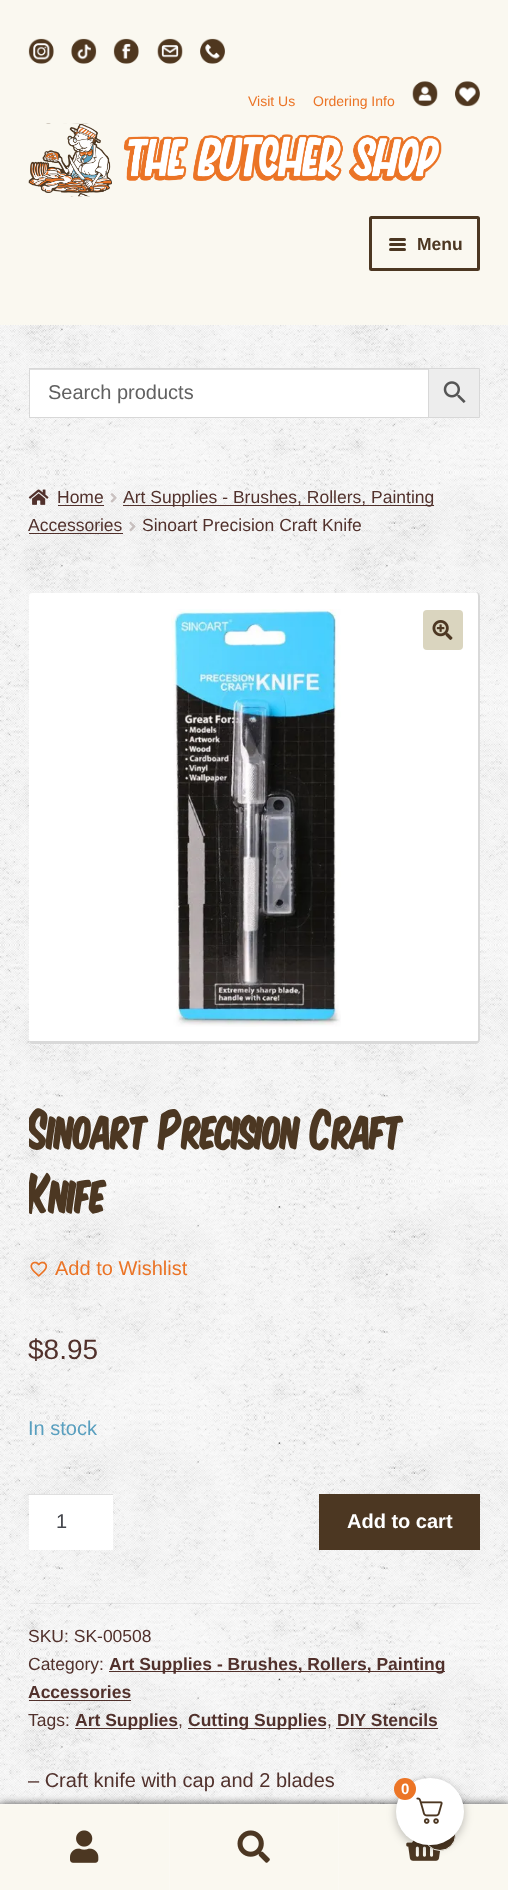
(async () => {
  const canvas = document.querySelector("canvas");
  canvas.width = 508;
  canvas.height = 1890;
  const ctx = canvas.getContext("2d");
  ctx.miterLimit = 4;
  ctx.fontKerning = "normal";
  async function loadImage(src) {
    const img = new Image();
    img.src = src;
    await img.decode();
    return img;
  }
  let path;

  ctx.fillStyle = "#ffffff";
  ctx.fillRect(0, 0, 508, 1890);
  ctx.drawImage(await loadImage("img/1.png"), 0, 325, 508, 1479);
  ctx.fillStyle = "#faf8f0";
  ctx.fillRect(0, 0, 508, 325);
  ctx.drawImage(await loadImage("img/2.png"), 28, 38, 26, 26);
  ctx.drawImage(await loadImage("img/3.png"), 71, 38, 26, 26);
  ctx.drawImage(await loadImage("img/4.png"), 113, 38, 26, 26);
  ctx.drawImage(await loadImage("img/5.png"), 157, 38, 26, 26);
  ctx.drawImage(await loadImage("img/6.png"), 200, 38, 25, 26);
  ctx.drawImage(await loadImage("img/7.png"), 412, 81, 26, 26);
  ctx.drawImage(await loadImage("img/8.png"), 455, 81, 25, 26);
  ctx.drawImage(await loadImage("img/9.png"), 28, 123, 414, 74);
  ctx.beginPath();
  ctx.roundRect(370.5, 217.5, 108, 52, 1);
  ctx.strokeStyle = "#4c3722";
  ctx.lineWidth = 3;
  ctx.stroke();
  ctx.fillStyle = "#4c3722";
  ctx.beginPath();
  ctx.roundRect(389, 238, 17, 3, 1.5);
  ctx.fill();
  ctx.beginPath();
  ctx.roundRect(389, 243, 17, 3, 1.5);
  ctx.fill();
  ctx.beginPath();
  ctx.roundRect(389, 248, 17, 3, 1.5);
  ctx.fill();
  ctx.fillStyle = "#ffffff";
  ctx.fillRect(30, 370, 398, 47);
  ctx.fillStyle = "#dfdfdf";
  ctx.fillRect(30, 369, 398, 1);
  ctx.fillStyle = "#ededed";
  ctx.beginPath();
  ctx.rect(428.5, 368.5, 51, 49);
  ctx.fill();
  ctx.strokeStyle = "#d8d8d8";
  ctx.lineWidth = 1;
  ctx.stroke();
  ctx.strokeRect(29.5, 368.5, 399, 49);
  ctx.drawImage(await loadImage("img/10.png"), 443, 381, 23, 22);
  ctx.drawImage(await loadImage("img/11.png"), 28, 489, 21, 16);
  ctx.fillStyle = "#51312c";
  ctx.fillRect(58, 505, 46, 1);
  ctx.drawImage(await loadImage("img/12.png"), 110, 493, 7, 10);
  ctx.fillRect(123, 505, 311, 1);
  ctx.fillRect(29, 533, 94, 1);
  ctx.drawImage(await loadImage("img/13.png"), 129, 522, 7, 10);
  ctx.fillStyle = "#ffffff";
  ctx.beginPath();
  ctx.roundRect(29, 593, 451, 451, 4);
  ctx.fill();
  ctx.fillStyle = "#d9d9d9";
  path = new Path2D("M32 592H476C478 592 480 594 480 596V1040C480 1042 478 1044 476 1044H32C30 1044 29 1042 29 1040V596C29 594 30 592 32 592ZM32 592H476C477 592 478 594 478 596V1040C478 1041 477 1041 476 1041H32C30 1041 29 1041 29 1040V596C29 594 30 592 32 592Z");
  ctx.fill(path, "evenodd");
  ctx.drawImage(await loadImage("img/14.png"), 171, 609, 170, 418);
  ctx.fillStyle = "#dad5bf";
  ctx.beginPath();
  ctx.roundRect(423, 610, 40, 40, 4);
  ctx.fill();
  ctx.drawImage(await loadImage("img/15.png"), 432, 620, 21, 20);
  ctx.drawImage(await loadImage("img/16.png"), 30, 1261, 18, 16);
  for (const [x, y, w, h, color] of [
    [29, 1495, 84, 55, "#ffffff"],
    [29, 1494, 84, 1, "#dfdfdf"],
    [319, 1494, 161, 56, "#4c3722"],
    [29, 1603, 451, 1, "rgba(0, 0, 0, 0.05)"],
    [109, 1671, 336, 1, "#51312c"],
    [29, 1700, 102, 1, "#51312c"],
    [75, 1728, 103, 1, "#51312c"],
    [188, 1728, 138, 1, "#51312c"],
    [336, 1728, 102, 1, "#51312c"],
  ]) {
    ctx.fillStyle = color;
    ctx.fillRect(x, y, w, h);
  }
  ctx.fillStyle = "rgba(0, 0, 0, 0.7)";
  ctx.filter = "blur(4px)";
  ctx.beginPath();
  ctx.rect(0, 1804, 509, 86);
  ctx.fill();
  ctx.filter = "none";
  for (const [x, y, w, h, color] of [
    [0, 1804, 508, 1, "#fbf9f3"],
    [0, 1805, 169, 85, "#faf8f0"],
    [169, 1805, 1, 85, "#fbf9f3"],
  ]) {
    ctx.fillStyle = color;
    ctx.fillRect(x, y, w, h);
  }
  ctx.drawImage(await loadImage("img/17.png"), 70, 1830, 29, 33);
  ctx.fillStyle = "#faf8f0";
  ctx.fillRect(170, 1805, 168, 85);
  ctx.fillStyle = "#fbf9f3";
  ctx.fillRect(338, 1805, 1, 85);
  ctx.drawImage(await loadImage("img/18.png"), 237, 1830, 33, 33);
  ctx.fillStyle = "#faf8f0";
  ctx.fillRect(339, 1805, 169, 85);
  ctx.drawImage(await loadImage("img/19.png"), 406, 1840, 35, 21);
  ctx.fillStyle = "#4c3722";
  ctx.beginPath();
  ctx.arc(440, 1835, 15.5, 0, Math.PI * 2);
  ctx.fill();
  ctx.strokeStyle = "#faf8f0";
  ctx.stroke();
  ctx.fillStyle = "rgba(0, 0, 0, 0.25)";
  ctx.filter = "blur(5px)";
  ctx.beginPath();
  ctx.roundRect(396, 1780, 68, 68, 34);
  ctx.fill();
  ctx.filter = "none";
  ctx.fillStyle = "#ffffff";
  ctx.beginPath();
  ctx.roundRect(396, 1778, 68, 67, 33.5);
  ctx.fill();
  ctx.drawImage(await loadImage("img/20.png"), 416, 1797, 27, 27);
  ctx.fillStyle = "#ec7526";
  ctx.beginPath();
  ctx.arc(405, 1789, 11, 0, Math.PI * 2);
  ctx.fill();
  ctx.font = "14px Liberation Sans";
  ctx.fillStyle = "#eb7426";
  ctx.fillText("Visit Us", 248, 106);
  ctx.fillText("Ordering Info", 313, 106);
  ctx.font = "bold 17.5px Liberation Sans";
  ctx.fillStyle = "#4c3722";
  ctx.fillText("Menu", 417, 250);
  ctx.font = "20px Liberation Sans";
  ctx.fillStyle = "#616161";
  ctx.fillText("Search products", 48, 399);
  ctx.font = "17.5px Liberation Sans";
  ctx.fillStyle = "#51312c";
  for (const [text, x, y] of [
    ["Home", 57, 503],
    ["Art Supplies - Brushes, Rollers, Painting", 123, 503],
    ["Accessories", 28, 531],
    ["Sinoart Precision Craft Knife", 142, 531],
  ]) {
    ctx.fillText(text, x, y);
  }
  ctx.save();
  ctx.beginPath();
  ctx.rect(29, 593, 451, 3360);
  ctx.clip();
  ctx.letterSpacing = "-1.25px";
  ctx.font = "52.5px 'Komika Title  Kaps'";
  ctx.fillStyle = "#4c3722";
  ctx.fillText("Sinoart Precision Craft", 28, 1149);
  ctx.fillText("Knife", 28, 1213);
  ctx.restore();
  ctx.font = "20px Liberation Sans";
  ctx.fillStyle = "#eb7426";
  ctx.fillText("Add to Wishlist", 55, 1275);
  ctx.font = "28px Liberation Sans";
  ctx.fillStyle = "#51312c";
  ctx.fillText("$8.95", 28, 1359);
  ctx.font = "20px Liberation Sans";
  ctx.fillStyle = "#599fbf";
  ctx.fillText("In stock", 28, 1435);
  ctx.fillStyle = "#43454b";
  ctx.fillText("1", 56, 1528);
  ctx.font = "bold 20px Liberation Sans";
  ctx.fillStyle = "#ffffff";
  ctx.fillText("Add to cart", 347, 1528);
  ctx.font = "17.5px Liberation Sans";
  ctx.fillStyle = "#51312c";
  ctx.fillText("SKU: SK-00508", 28, 1642);
  ctx.fillText("Category:", 28, 1670);
  ctx.font = "bold 17.5px Liberation Sans";
  ctx.fillText("Art Supplies - Brushes, Rollers, Painting", 109, 1670);
  ctx.fillText("Accessories", 28, 1698);
  ctx.font = "17.5px Liberation Sans";
  ctx.fillText("Tags:", 28, 1726);
  ctx.font = "bold 17.5px Liberation Sans";
  ctx.fillText("Art Supplies", 75, 1726);
  ctx.font = "17.5px Liberation Sans";
  ctx.fillText(",", 178, 1726);
  ctx.font = "bold 17.5px Liberation Sans";
  ctx.fillText("Cutting Supplies", 188, 1726);
  ctx.font = "17.5px Liberation Sans";
  ctx.fillText(",", 327, 1726);
  ctx.font = "bold 17.5px Liberation Sans";
  ctx.fillText("DIY Stencils", 337, 1726);
  ctx.font = "20px Liberation Sans";
  ctx.fillText("– Craft knife with cap and 2 blades", 28, 1787);
  ctx.font = "bold 15px Liberation Sans";
  ctx.fillStyle = "#ffffff";
  ctx.fillText("0", 401, 1794);
})();
